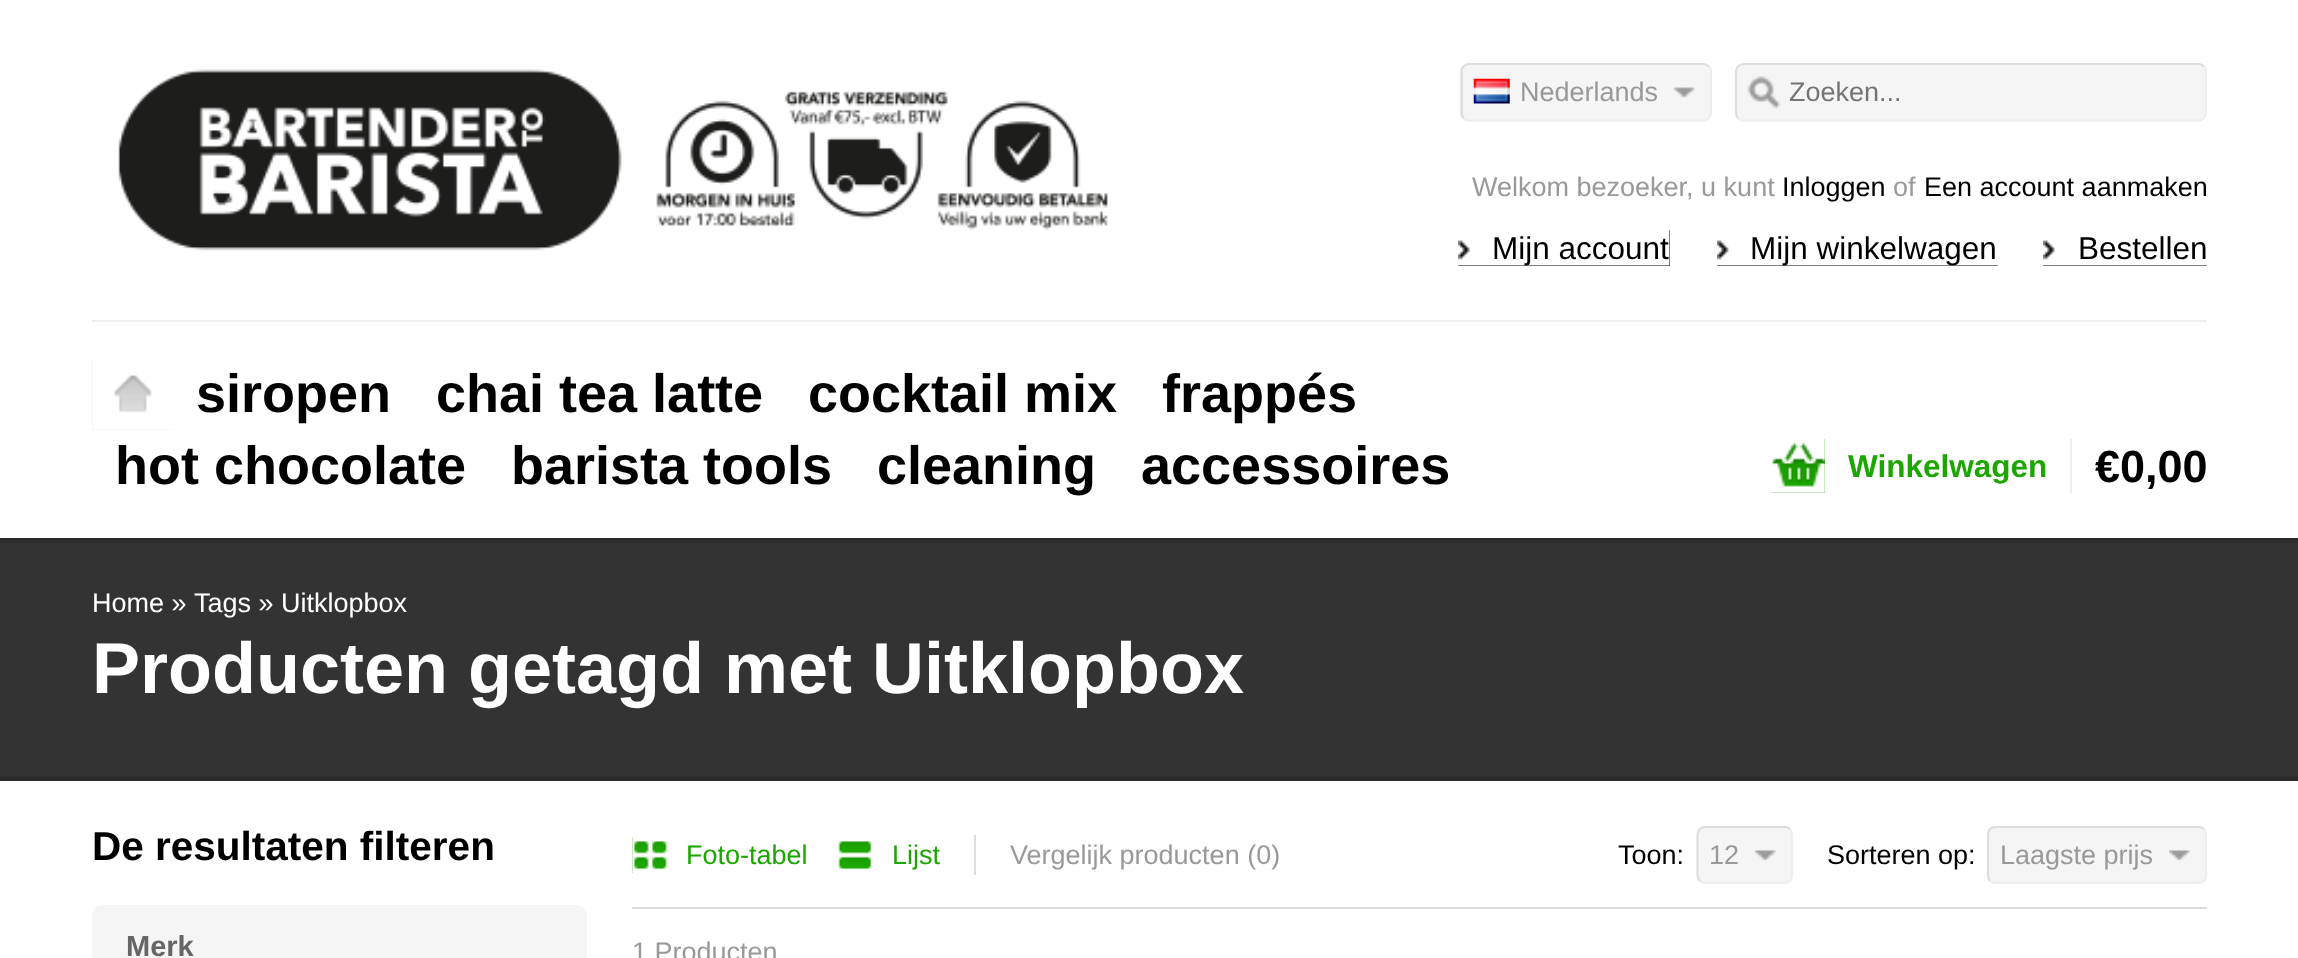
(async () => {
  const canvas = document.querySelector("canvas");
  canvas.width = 2298;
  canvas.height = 958;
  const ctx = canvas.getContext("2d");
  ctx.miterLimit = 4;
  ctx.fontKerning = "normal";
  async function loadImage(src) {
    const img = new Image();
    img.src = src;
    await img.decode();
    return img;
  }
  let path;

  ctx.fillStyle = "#ffffff";
  ctx.fillRect(0, 0, 2298, 958);
  ctx.drawImage(await loadImage("img/1.png"), 118, 69, 990, 182);
  ctx.fillStyle = "#f5f5f5";
  ctx.beginPath();
  ctx.roundRect(1460, 63, 252, 59, 9);
  ctx.fill();
  ctx.drawImage(await loadImage("img/2.png"), 1674, 87, 21, 11);
  path = new Path2D("M1709 66.5C1710.5 68 1711 70 1711 72V112.5C1711 114.5 1710.5 116.5 1709 118C1707.5 119.5 1705.5 120.5 1703 120.5H1469C1467 120.5 1465 119.5 1463.5 118");
  ctx.strokeStyle = "#eeeeee";
  ctx.lineWidth = 2.2;
  ctx.stroke(path);
  path = new Path2D("M1463.5 118C1462 116.5 1461.5 114.5 1461.5 112.5V72C1461.5 70 1462 68 1463.5 66.5C1465 65 1467 64 1469 64H1703C1705.5 64 1707.5 65 1709 66.5");
  ctx.strokeStyle = "#dddddd";
  ctx.stroke(path);
  ctx.drawImage(await loadImage("img/3.png"), 1473, 78, 37, 26);
  ctx.beginPath();
  ctx.roundRect(1735, 63, 472, 59, 9);
  ctx.fill();
  ctx.drawImage(await loadImage("img/4.png"), 1747, 76, 34, 33);
  path = new Path2D("M2204 66.5C2205.5 68 2206 70 2206 72V112.5C2206 114.5 2205.5 116.5 2204 118C2202.5 119.5 2200.5 120.5 2198 120.5H1744C1741.5 120.5 1739.5 119.5 1738 118");
  ctx.strokeStyle = "#eeeeee";
  ctx.stroke(path);
  path = new Path2D("M1738 118C1736.5 116.5 1736 114.5 1736 112.5V72C1736 70 1736.5 68 1738 66.5C1739.5 65 1741.5 64 1744 64H2198C2200.5 64 2202.5 65 2204 66.5");
  ctx.strokeStyle = "#dddddd";
  ctx.stroke(path);
  ctx.fillStyle = "#000000";
  ctx.fillRect(1458, 230, 212, 36);
  ctx.drawImage(await loadImage("img/5.png"), 1458, 230, 212, 36);
  ctx.fillRect(1717, 240, 281, 26);
  ctx.drawImage(await loadImage("img/6.png"), 1717, 230, 281, 36);
  ctx.fillRect(2043, 240, 164, 26);
  ctx.drawImage(await loadImage("img/7.png"), 2043, 230, 164, 36);
  ctx.fillStyle = "#eeeeee";
  ctx.fillRect(92, 320, 2115, 2);
  ctx.fillStyle = "#dddddd";
  ctx.fillRect(92, 358, 81, 72);
  ctx.drawImage(await loadImage("img/8.png"), 92, 358, 81, 72);
  ctx.fillStyle = "#1ca600";
  ctx.fillRect(1771, 439, 54, 54);
  ctx.drawImage(await loadImage("img/9.png"), 1771, 439, 54, 54);
  ctx.fillStyle = "#eeeeee";
  ctx.fillRect(2070, 439, 2, 54);
  ctx.fillStyle = "#333333";
  ctx.fillRect(0, 538, 2298, 243);
  ctx.drawImage(await loadImage("img/10.png"), 0, 538, 2298, 5);
  ctx.drawImage(await loadImage("img/11.png"), 0, 776, 2298, 5);
  ctx.fillStyle = "#f5f5f5";
  ctx.beginPath();
  ctx.roundRect(92, 905, 495, 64, 11);
  ctx.fill();
  ctx.fillStyle = "#dddddd";
  ctx.fillRect(632, 907, 1575, 2);
  ctx.fillStyle = "#1ca600";
  ctx.fillRect(632, 837, 35, 36);
  ctx.drawImage(await loadImage("img/12.png"), 632, 837, 36, 36);
  ctx.fillRect(838, 841, 34, 29);
  ctx.drawImage(await loadImage("img/13.png"), 837, 837, 36, 36);
  ctx.fillStyle = "#dddddd";
  ctx.fillRect(974, 835, 2, 40);
  ctx.fillStyle = "#f5f5f5";
  ctx.beginPath();
  ctx.roundRect(1697, 826, 96, 58, 9);
  ctx.fill();
  ctx.drawImage(await loadImage("img/14.png"), 1755, 850, 21, 11);
  path = new Path2D("M1790 829C1791.5 830.5 1792 832.5 1792 835V875C1792 877.5 1791.5 879.5 1790 881C1788.5 882.5 1786.5 883 1784 883H1705.5C1703.5 883 1701.5 882.5 1700 881");
  ctx.strokeStyle = "#eeeeee";
  ctx.stroke(path);
  path = new Path2D("M1700 881C1698.5 879.5 1697.5 877.5 1697.5 875V835C1697.5 832.5 1698.5 830.5 1700 829C1701.5 827.5 1703.5 827 1705.5 827H1784C1786.5 827 1788.5 827.5 1790 829");
  ctx.strokeStyle = "#dddddd";
  ctx.stroke(path);
  ctx.beginPath();
  ctx.roundRect(1987, 826, 220, 58, 9);
  ctx.fill();
  ctx.drawImage(await loadImage("img/15.png"), 2169, 850, 21, 11);
  path = new Path2D("M2204 829C2205.5 830.5 2206 832.5 2206 835V875C2206 877.5 2205.5 879.5 2204 881C2202.5 882.5 2200.5 883 2198 883H1996C1993.5 883 1991.5 882.5 1990 881");
  ctx.strokeStyle = "#eeeeee";
  ctx.stroke(path);
  path = new Path2D("M1990 881C1988.5 879.5 1988 877.5 1988 875V835C1988 832.5 1988.5 830.5 1990 829C1991.5 827.5 1993.5 827 1996 827H2198C2200.5 827 2202.5 827.5 2204 829");
  ctx.strokeStyle = "#dddddd";
  ctx.stroke(path);
  ctx.font = "27px Liberation Sans";
  ctx.fillStyle = "#999999";
  ctx.fillText("Nederlands", 1520, 101);
  ctx.fillStyle = "#757575";
  ctx.fillText("Zoeken...", 1789, 101);
  ctx.fillStyle = "#999999";
  ctx.fillText("Welkom bezoeker, u kunt", 1472, 196);
  ctx.fillStyle = "#000000";
  ctx.fillText("Inloggen", 1782, 196);
  ctx.fillStyle = "#999999";
  ctx.fillText("of", 1893, 196);
  ctx.fillStyle = "#000000";
  ctx.fillText("Een account aanmaken", 1924, 196);
  ctx.font = "31.5px Liberation Sans";
  for (const [text, x, y] of [
    ["Mijn account", 1492, 259],
    ["Mijn winkelwagen", 1750, 259],
    ["Bestellen", 2078, 259],
  ]) {
    ctx.fillText(text, x, y);
  }
  ctx.font = "bold 54px Liberation Sans";
  for (const [text, x, y] of [
    ["siropen", 196, 412],
    ["chai tea latte", 436, 412],
    ["cocktail mix", 808, 412],
    ["frappés", 1162, 412],
    ["hot chocolate", 115, 484],
    ["barista tools", 511, 484],
    ["cleaning", 877, 484],
    ["accessoires", 1141, 484],
  ]) {
    ctx.fillText(text, x, y);
  }
  ctx.font = "bold 31.5px Liberation Sans";
  ctx.fillStyle = "#1ca600";
  ctx.fillText("Winkelwagen", 1848, 477);
  ctx.font = "bold 45px Liberation Sans";
  ctx.fillStyle = "#000000";
  ctx.fillText("€0,00", 2095, 482);
  ctx.font = "27px Liberation Sans";
  ctx.fillStyle = "#ffffff";
  ctx.fillText("Home »", 92, 612);
  ctx.fillText("Tags » Uitklopbox", 194, 612);
  ctx.font = "bold 72px Liberation Sans";
  ctx.fillText("Producten getagd met Uitklopbox", 92, 693);
  ctx.font = "bold 40.5px Liberation Sans";
  ctx.fillStyle = "#000000";
  ctx.fillText("De resultaten filteren", 92, 860);
  ctx.font = "bold 29px Liberation Sans";
  ctx.fillStyle = "#666666";
  ctx.fillText("Merk", 126, 956);
  ctx.font = "27px Liberation Sans";
  ctx.fillStyle = "#1ca600";
  ctx.fillText("Foto-tabel", 686, 864);
  ctx.fillText("Lijst", 892, 864);
  ctx.fillStyle = "#999999";
  ctx.fillText("Vergelijk producten (0)", 1010, 864);
  ctx.fillStyle = "#000000";
  ctx.fillText("Toon:", 1618, 864);
  ctx.fillStyle = "#999999";
  ctx.fillText("12", 1709, 864);
  ctx.fillStyle = "#000000";
  ctx.fillText("Sorteren op:", 1827, 864);
  ctx.fillStyle = "#999999";
  ctx.fillText("Laagste prijs", 2000, 864);
  ctx.fillText("1 Producten", 632, 961);
})();
